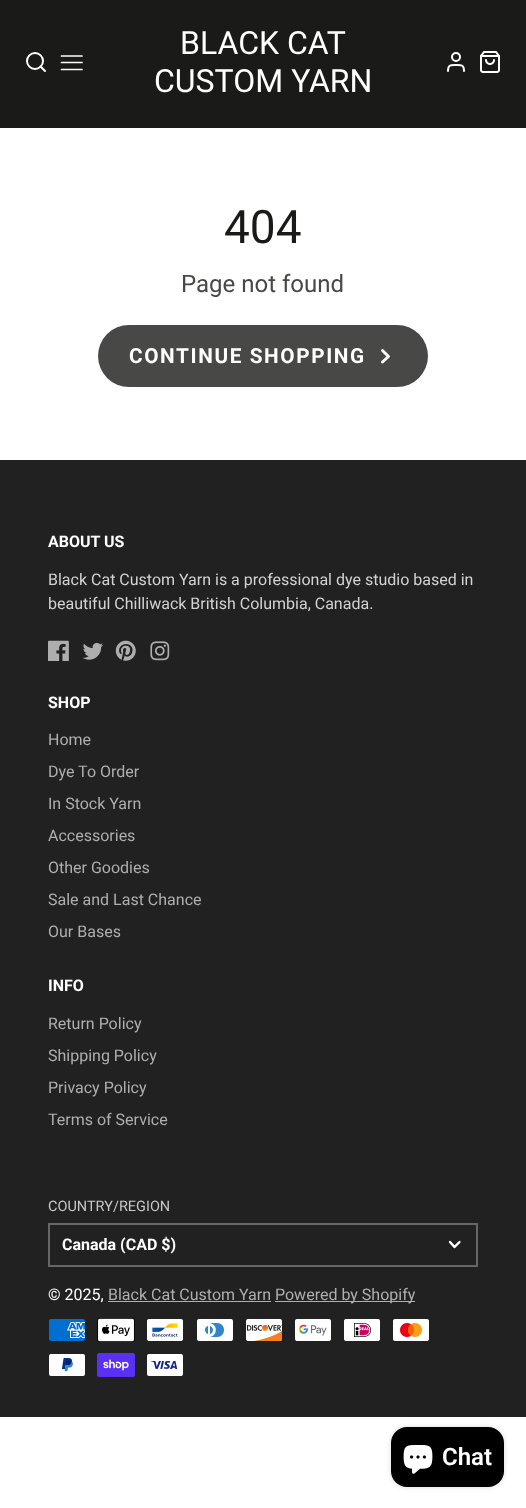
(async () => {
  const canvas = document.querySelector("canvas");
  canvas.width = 526;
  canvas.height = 1508;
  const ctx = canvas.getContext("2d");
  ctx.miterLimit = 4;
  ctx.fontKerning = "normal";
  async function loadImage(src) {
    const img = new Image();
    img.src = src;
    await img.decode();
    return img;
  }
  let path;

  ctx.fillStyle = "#ffffff";
  ctx.fillRect(0, 0, 526, 1508);
  ctx.fillStyle = "#1a1b18";
  ctx.fillRect(0, 0, 526, 128);
  ctx.beginPath();
  ctx.arc(35, 61, 8, 0, Math.PI * 2);
  ctx.strokeStyle = "#ffffff";
  ctx.lineWidth = 2;
  ctx.stroke();
  path = new Path2D("M45 71L40.5 66.5");
  ctx.lineCap = "round";
  ctx.lineJoin = "round";
  ctx.stroke(path);
  path = new Path2D("M61.5 62.5H82M61.5 56H82M61.5 69.5H82");
  ctx.lineWidth = 1.7;
  ctx.stroke(path);
  ctx.beginPath();
  ctx.arc(456, 57, 4, 0, Math.PI * 2);
  ctx.lineWidth = 2;
  ctx.stroke();
  path = new Path2D("M464 71C464 64.5 461.5 65 456 65C450.5 65 448 64.5 448 71");
  ctx.stroke(path);
  ctx.drawImage(await loadImage("img/1.png"), 480, 51, 20, 22);
  ctx.fillStyle = "#484946";
  ctx.beginPath();
  ctx.roundRect(98, 325, 330, 62, 31);
  ctx.fill();
  path = new Path2D("M382.5 362L388.5 356.5L382.5 350.5");
  ctx.lineWidth = 2.9;
  ctx.stroke(path);
  ctx.fillStyle = "#212121";
  ctx.fillRect(0, 460, 526, 957);
  ctx.drawImage(await loadImage("img/2.png"), 48, 640, 21, 21);
  ctx.drawImage(await loadImage("img/3.png"), 82, 643, 21, 17);
  ctx.drawImage(await loadImage("img/4.png"), 115, 640, 21, 21);
  ctx.drawImage(await loadImage("img/5.png"), 150, 641, 20, 20);
  ctx.strokeStyle = "#666666";
  ctx.lineWidth = 2;
  ctx.lineJoin = "miter";
  ctx.strokeRect(49, 1224, 428, 42);
  path = new Path2D("M450 1242L454.5 1247L459.5 1242");
  ctx.strokeStyle = "#ffffff";
  ctx.lineWidth = 2.4;
  ctx.lineJoin = "round";
  ctx.stroke(path);
  ctx.fillStyle = "#afafaf";
  ctx.fillRect(108, 1301, 163, 1);
  ctx.fillRect(275, 1301, 140, 1);
  ctx.drawImage(await loadImage("img/6.png"), 49, 1319, 36, 22);
  ctx.drawImage(await loadImage("img/7.png"), 97, 1318, 38, 24);
  ctx.drawImage(await loadImage("img/8.png"), 147, 1319, 36, 22);
  ctx.drawImage(await loadImage("img/9.png"), 197, 1319, 36, 22);
  ctx.drawImage(await loadImage("img/10.png"), 246, 1319, 36, 22);
  ctx.drawImage(await loadImage("img/11.png"), 295, 1319, 36, 22);
  ctx.drawImage(await loadImage("img/12.png"), 344, 1319, 36, 22);
  ctx.drawImage(await loadImage("img/13.png"), 393, 1319, 36, 22);
  ctx.drawImage(await loadImage("img/14.png"), 49, 1354, 36, 22);
  ctx.drawImage(await loadImage("img/15.png"), 97, 1353, 38, 24);
  ctx.drawImage(await loadImage("img/16.png"), 147, 1354, 36, 22);
  ctx.fillStyle = "rgba(0, 0, 0, 0.15)";
  ctx.filter = "blur(2.5px)";
  ctx.beginPath();
  ctx.roundRect(391, 1427, 113, 60, 16);
  ctx.fill();
  ctx.filter = "none";
  ctx.fillStyle = "#000000";
  ctx.beginPath();
  ctx.roundRect(391, 1427, 113, 60, 16);
  ctx.fill();
  ctx.drawImage(await loadImage("img/17.png"), 403, 1445, 30, 29);
  ctx.font = "32px Roboto";
  ctx.fillStyle = "#ffffff";
  ctx.fillText("BLACK CAT", 180, 54);
  ctx.fillText("CUSTOM YARN", 154, 92);
  ctx.font = "46px Roboto";
  ctx.fillStyle = "#1a1b18";
  ctx.fillText("404", 224, 243);
  ctx.font = "24px Roboto";
  ctx.fillStyle = "#484946";
  ctx.fillText("Page not found", 181, 292);
  ctx.letterSpacing = "1.6px";
  ctx.font = "bold 20.75px Roboto";
  ctx.fillStyle = "#ffffff";
  ctx.fillText("CONTINUE SHOPPING", 129, 363);
  ctx.letterSpacing = "0px";
  ctx.font = "bold 16px Roboto";
  ctx.fillText("ABOUT US", 48, 547);
  ctx.font = "16px Roboto";
  ctx.fillStyle = "#d3d3d3";
  ctx.fillText("Black Cat Custom Yarn is a professional dye studio based in", 48, 585);
  ctx.fillText("beautiful Chilliwack British Columbia, Canada.", 48, 609);
  ctx.font = "bold 16px Roboto";
  ctx.fillStyle = "#ffffff";
  ctx.fillText("SHOP", 48, 708);
  ctx.font = "16px Roboto";
  ctx.fillStyle = "#afafaf";
  for (const [text, x, y] of [
    ["Home", 48, 745],
    ["Dye To Order", 48, 777],
    ["In Stock Yarn", 48, 809],
    ["Accessories", 48, 841],
    ["Other Goodies", 48, 873],
    ["Sale and Last Chance", 48, 905],
    ["Our Bases", 48, 937],
  ]) {
    ctx.fillText(text, x, y);
  }
  ctx.font = "bold 16px Roboto";
  ctx.fillStyle = "#ffffff";
  ctx.fillText("INFO", 48, 991);
  ctx.font = "16px Roboto";
  ctx.fillStyle = "#afafaf";
  for (const [text, x, y] of [
    ["Return Policy", 48, 1029],
    ["Shipping Policy", 48, 1061],
    ["Privacy Policy", 48, 1093],
    ["Terms of Service", 48, 1125],
  ]) {
    ctx.fillText(text, x, y);
  }
  ctx.font = "14.5px Roboto";
  ctx.fillStyle = "#c8c8c8";
  ctx.fillText("COUNTRY/REGION", 48, 1211);
  ctx.font = "bold 16px Roboto";
  ctx.fillStyle = "#ffffff";
  ctx.fillText("Canada (CAD $)", 62, 1250);
  ctx.font = "16px Roboto";
  ctx.fillText("© 2025,", 48, 1300);
  ctx.fillStyle = "#afafaf";
  ctx.fillText("Black Cat Custom Yarn", 108, 1300);
  ctx.fillText("Powered by Shopify", 275, 1300);
  ctx.font = "600 24px Roboto";
  ctx.fillStyle = "#ffffff";
  ctx.fillText("Chat", 442, 1465);
})();
